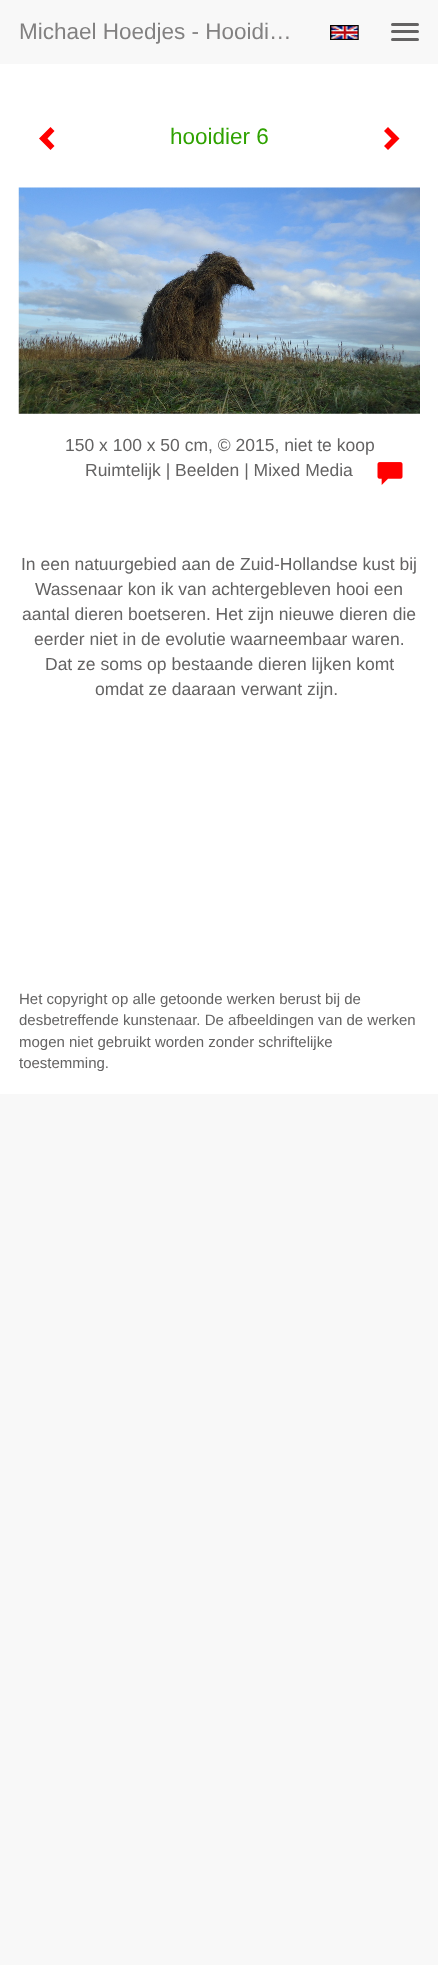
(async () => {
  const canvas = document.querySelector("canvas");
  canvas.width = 438;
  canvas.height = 1965;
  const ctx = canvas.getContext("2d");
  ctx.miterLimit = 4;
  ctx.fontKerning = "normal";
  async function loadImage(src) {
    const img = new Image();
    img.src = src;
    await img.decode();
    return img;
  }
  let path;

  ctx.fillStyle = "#f8f8f8";
  ctx.fillRect(0, 0, 438, 1965);
  ctx.fillStyle = "#ffffff";
  ctx.fillRect(0, 64, 438, 1030);
  ctx.fillStyle = "#646363";
  ctx.beginPath();
  ctx.roundRect(391, 23, 28, 3, 1.5);
  ctx.fill();
  ctx.beginPath();
  ctx.roundRect(391, 30, 28, 3, 1.5);
  ctx.fill();
  ctx.beginPath();
  ctx.roundRect(391, 38, 28, 3, 1.5);
  ctx.fill();
  ctx.drawImage(await loadImage("img/1.png"), 330, 25, 29, 15);
  ctx.fillStyle = "#ff0000";
  path = new Path2D("M54.5 131L47.5 138.5L54.5 146L50.5 150L39 138.5L50.5 127Z");
  ctx.fill(path);
  path = new Path2D("M399.5 138.5L388 150L384 146L391.5 138.5L384 131L388 127Z");
  ctx.fill(path);
  ctx.drawImage(await loadImage("img/2.png"), 18, 187, 402, 227);
  ctx.drawImage(await loadImage("img/3.png"), 377, 462, 26, 23);
  ctx.font = "22.5px Liberation Sans";
  ctx.fillStyle = "#828181";
  ctx.fillText("Michael Hoedjes - Hooidi…", 19, 39);
  ctx.fillStyle = "#2fa200";
  ctx.fillText("hooidier 6", 170, 144);
  ctx.font = "17.5px Liberation Sans";
  ctx.fillStyle = "#646363";
  for (const [text, x, y] of [
    ["150 x 100 x 50 cm, © 2015, niet te koop", 65, 451],
    ["Ruimtelijk | Beelden | Mixed Media", 85, 476],
    ["In een natuurgebied aan de Zuid-Hollandse kust bij", 21, 570],
    ["Wassenaar kon ik van achtergebleven hooi een", 35, 595],
    ["aantal dieren boetseren. Het zijn nieuwe dieren die", 22, 620],
    ["eerder niet in de evolutie waarneembaar waren.", 34, 645],
    ["Dat ze soms op bestaande dieren lijken komt", 45, 670],
    ["omdat ze daaraan verwant zijn.", 95, 695],
  ]) {
    ctx.fillText(text, x, y);
  }
  ctx.font = "15px Liberation Sans";
  for (const [text, x, y] of [
    ["Het copyright op alle getoonde werken berust bij de", 19, 1004],
    ["desbetreffende kunstenaar. De afbeeldingen van de werken", 19, 1025],
    ["mogen niet gebruikt worden zonder schriftelijke", 19, 1047],
    ["toestemming.", 19, 1068],
  ]) {
    ctx.fillText(text, x, y);
  }
})();
